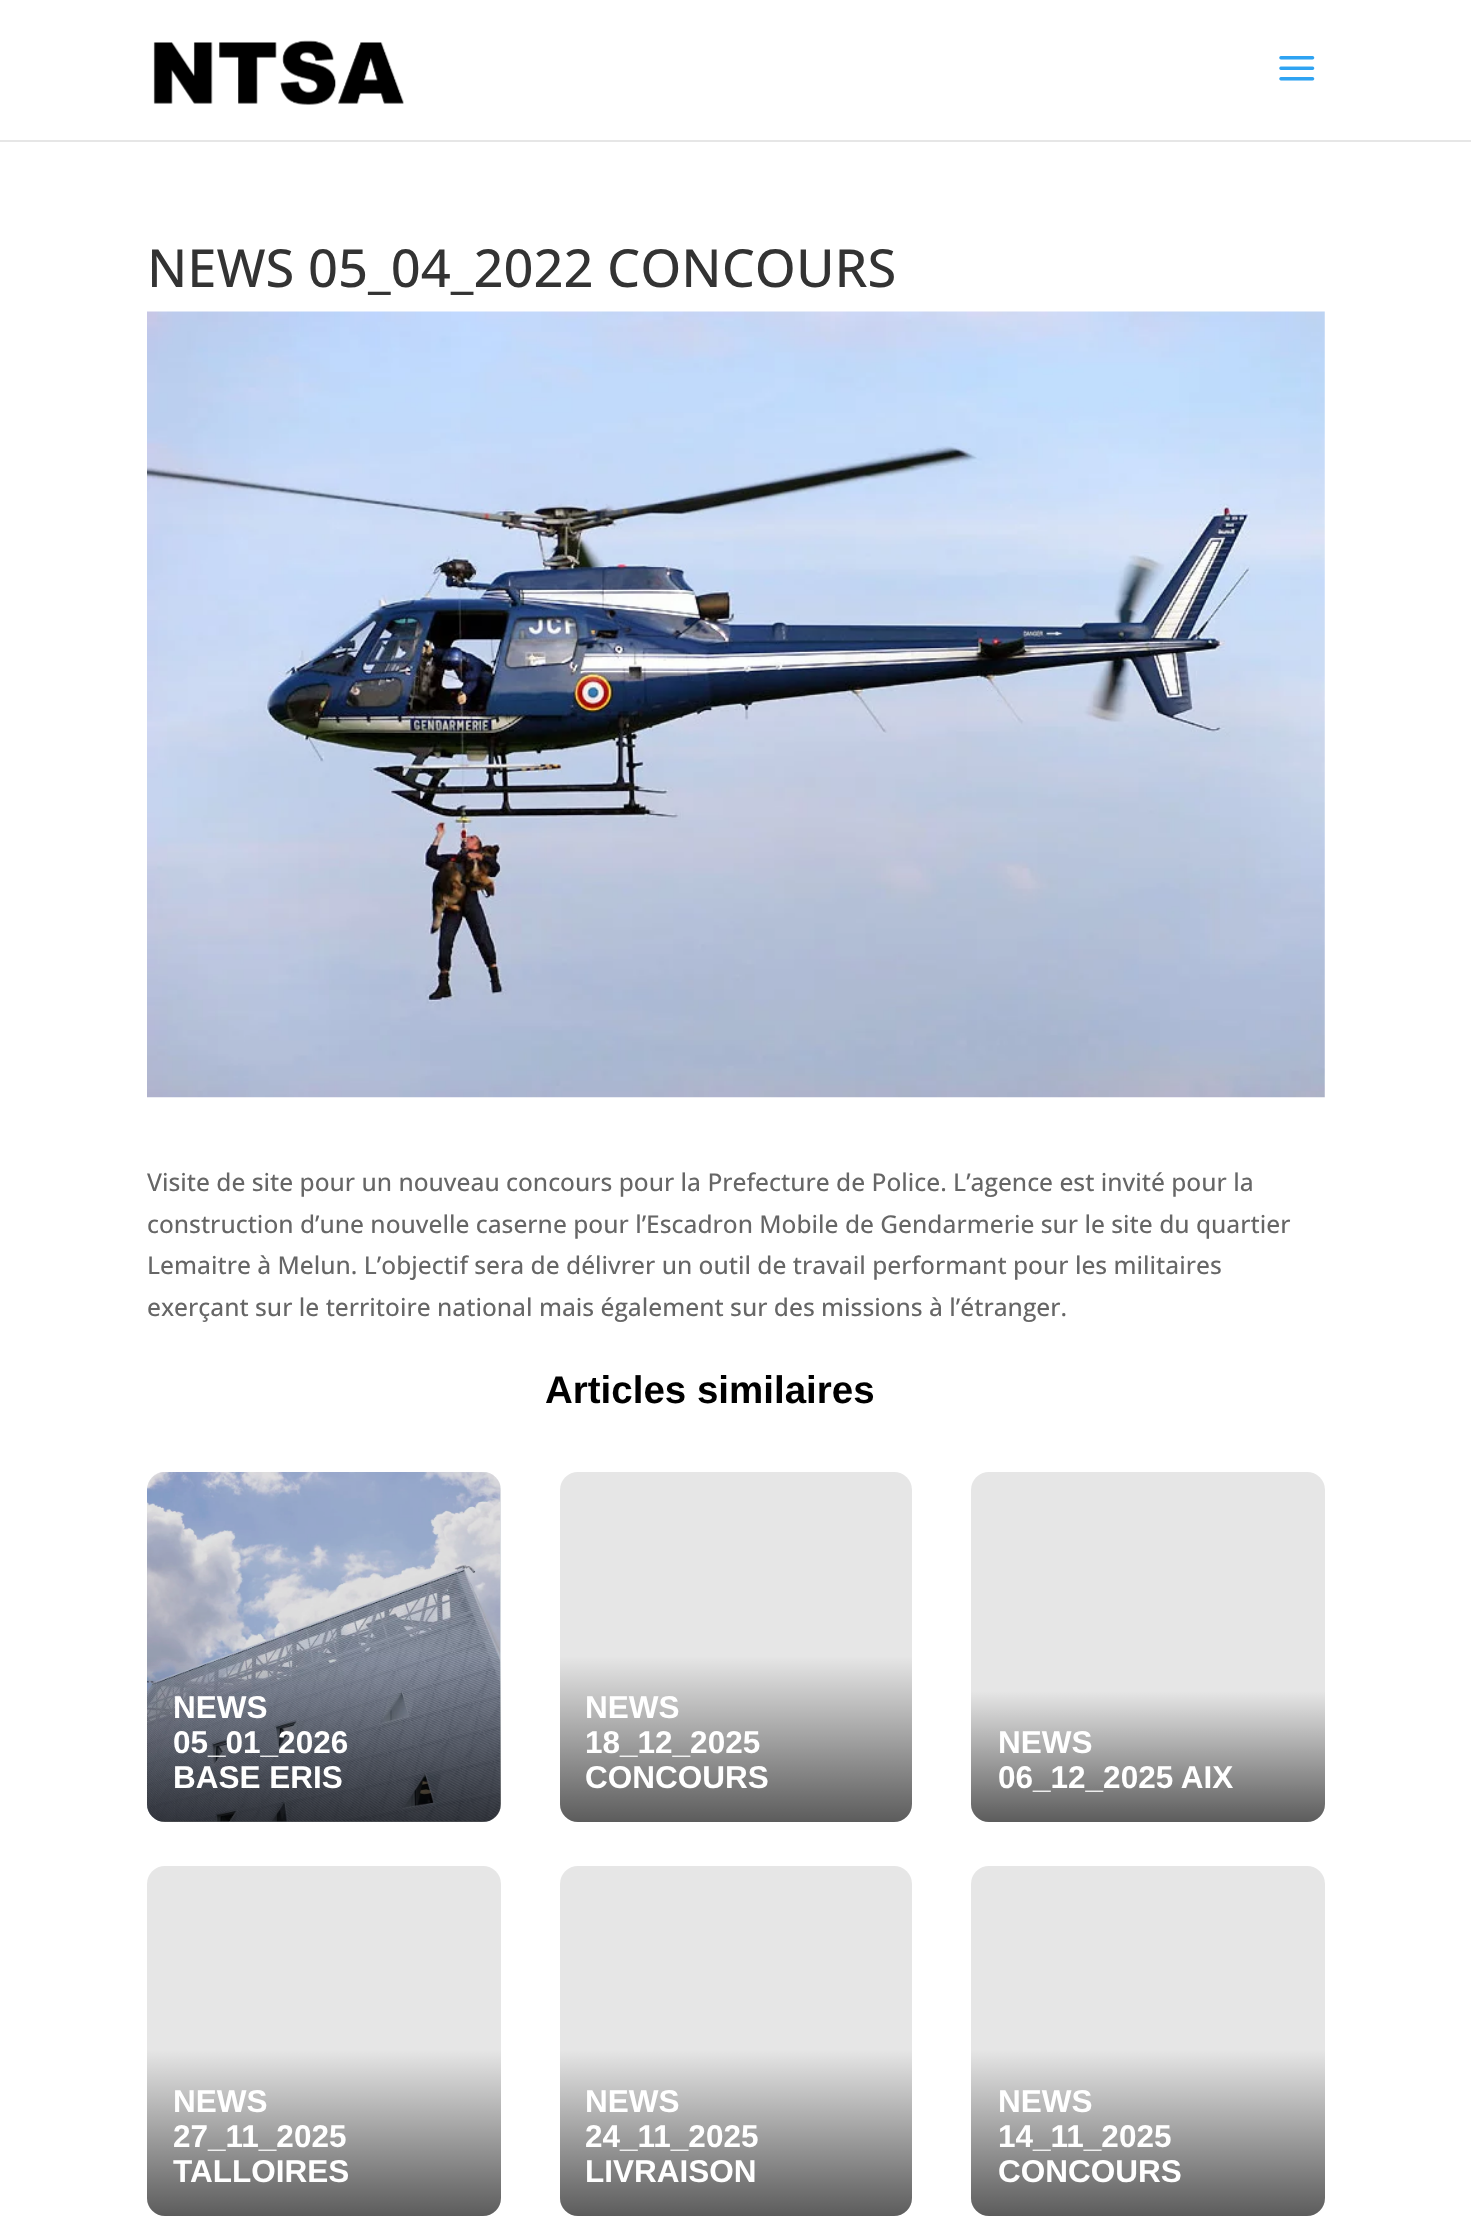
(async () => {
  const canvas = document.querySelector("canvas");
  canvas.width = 1471;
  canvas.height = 2236;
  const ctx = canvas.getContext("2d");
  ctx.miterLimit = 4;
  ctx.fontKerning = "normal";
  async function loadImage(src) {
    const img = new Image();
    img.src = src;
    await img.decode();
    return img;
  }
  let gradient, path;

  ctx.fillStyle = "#ffffff";
  ctx.fillRect(0, 0, 1471, 2236);
  ctx.fillStyle = "#e6e6e6";
  path = new Path2D("M0 140V142H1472V2V140Z");
  ctx.fill(path);
  ctx.drawImage(await loadImage("img/1.png"), 153, 40, 251, 65);
  ctx.drawImage(await loadImage("img/2.png"), 1279, 56, 36, 25);
  ctx.drawImage(await loadImage("img/3.png"), 147, 311, 1178, 787);
  ctx.save();
  ctx.beginPath();
  ctx.roundRect(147, 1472, 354, 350, 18);
  ctx.clip();
  ctx.fillStyle = "#e1edf9";
  ctx.filter = "blur(87.5px)";
  ctx.beginPath();
  ctx.rect(147, 1489, 354, 350);
  ctx.fill();
  ctx.filter = "none";
  ctx.restore();
  ctx.drawImage(await loadImage("img/4.png"), 147, 1472, 354, 350);
  ctx.fillStyle = "rgba(0, 0, 0, 0.1)";
  ctx.beginPath();
  ctx.roundRect(147, 1472, 354, 350, 18);
  ctx.fill();
  gradient = ctx.createLinearGradient(324, 1656, 324, 1822);
  gradient.addColorStop(0, "rgba(0, 0, 0, 0)");
  gradient.addColorStop(1, "rgba(0, 0, 0, 0.6)");
  ctx.fillStyle = gradient;
  ctx.beginPath();
  ctx.roundRect(147, 1656, 354, 166, [0, 0, 18, 18]);
  ctx.fill();
  ctx.fillStyle = "#e6e6e6";
  ctx.beginPath();
  ctx.roundRect(560, 1472, 352, 350, 18);
  ctx.fill();
  gradient = ctx.createLinearGradient(736, 1656, 736, 1822);
  gradient.addColorStop(0, "rgba(0, 0, 0, 0)");
  gradient.addColorStop(1, "rgba(0, 0, 0, 0.6)");
  ctx.fillStyle = gradient;
  ctx.beginPath();
  ctx.roundRect(560, 1656, 352, 166, [0, 0, 18, 18]);
  ctx.fill();
  ctx.fillStyle = "#e6e6e6";
  ctx.beginPath();
  ctx.roundRect(971, 1472, 354, 350, 18);
  ctx.fill();
  gradient = ctx.createLinearGradient(1148, 1691, 1148, 1822);
  gradient.addColorStop(0, "rgba(0, 0, 0, 0)");
  gradient.addColorStop(1, "rgba(0, 0, 0, 0.6)");
  ctx.fillStyle = gradient;
  ctx.beginPath();
  ctx.roundRect(971, 1691, 354, 131, [0, 0, 18, 18]);
  ctx.fill();
  ctx.fillStyle = "#e6e6e6";
  ctx.beginPath();
  ctx.roundRect(147, 1866, 354, 350, 18);
  ctx.fill();
  gradient = ctx.createLinearGradient(324, 2049, 324, 2216);
  gradient.addColorStop(0, "rgba(0, 0, 0, 0)");
  gradient.addColorStop(1, "rgba(0, 0, 0, 0.6)");
  ctx.fillStyle = gradient;
  ctx.beginPath();
  ctx.roundRect(147, 2049, 354, 167, [0, 0, 18, 18]);
  ctx.fill();
  ctx.fillStyle = "#e6e6e6";
  ctx.beginPath();
  ctx.roundRect(560, 1866, 352, 350, 18);
  ctx.fill();
  gradient = ctx.createLinearGradient(736, 2049, 736, 2216);
  gradient.addColorStop(0, "rgba(0, 0, 0, 0)");
  gradient.addColorStop(1, "rgba(0, 0, 0, 0.6)");
  ctx.fillStyle = gradient;
  ctx.beginPath();
  ctx.roundRect(560, 2049, 352, 167, [0, 0, 18, 18]);
  ctx.fill();
  ctx.fillStyle = "#e6e6e6";
  ctx.beginPath();
  ctx.roundRect(971, 1866, 354, 350, 18);
  ctx.fill();
  gradient = ctx.createLinearGradient(1148, 2049, 1148, 2216);
  gradient.addColorStop(0, "rgba(0, 0, 0, 0)");
  gradient.addColorStop(1, "rgba(0, 0, 0, 0.6)");
  ctx.fillStyle = gradient;
  ctx.beginPath();
  ctx.roundRect(971, 2049, 354, 167, [0, 0, 18, 18]);
  ctx.fill();
  ctx.font = "500 52.5px Open Sans";
  ctx.fillStyle = "#333333";
  ctx.fillText("NEWS 05_04_2022 CONCOURS", 147, 287);
  ctx.font = "500 24.5px Open Sans";
  ctx.fillStyle = "#666666";
  for (const [text, x, y] of [
    ["Visite de site pour un nouveau concours pour la Prefecture de Police. L’agence est invité pour la", 147, 1191],
    ["construction d’une nouvelle caserne pour l’Escadron Mobile de Gendarmerie sur le site du quartier", 147, 1233],
    ["Lemaitre à Melun. L’objectif sera de délivrer un outil de travail performant pour les militaires", 147, 1274],
    ["exerçant sur le territoire national mais également sur des missions à l’étranger.", 147, 1316],
  ]) {
    ctx.fillText(text, x, y);
  }
  ctx.font = "bold 38.5px Liberation Sans";
  ctx.fillStyle = "#000000";
  ctx.fillText("Articles similaires", 545, 1403);
  ctx.font = "bold 31.5px Liberation Sans";
  ctx.fillStyle = "#ffffff";
  for (const [text, x, y] of [
    ["NEWS", 173, 1718],
    ["05_01_2026", 173, 1753],
    ["BASE ERIS", 173, 1788],
    ["NEWS", 585, 1718],
    ["18_12_2025", 585, 1753],
    ["CONCOURS", 585, 1788],
    ["NEWS", 998, 1753],
    ["06_12_2025 AIX", 998, 1788],
    ["NEWS", 173, 2112],
    ["27_11_2025", 173, 2147],
    ["TALLOIRES", 173, 2182],
    ["NEWS", 585, 2112],
    ["24_11_2025", 585, 2147],
    ["LIVRAISON", 585, 2182],
    ["NEWS", 998, 2112],
    ["14_11_2025", 998, 2147],
    ["CONCOURS", 998, 2182],
  ]) {
    ctx.fillText(text, x, y);
  }
})();
